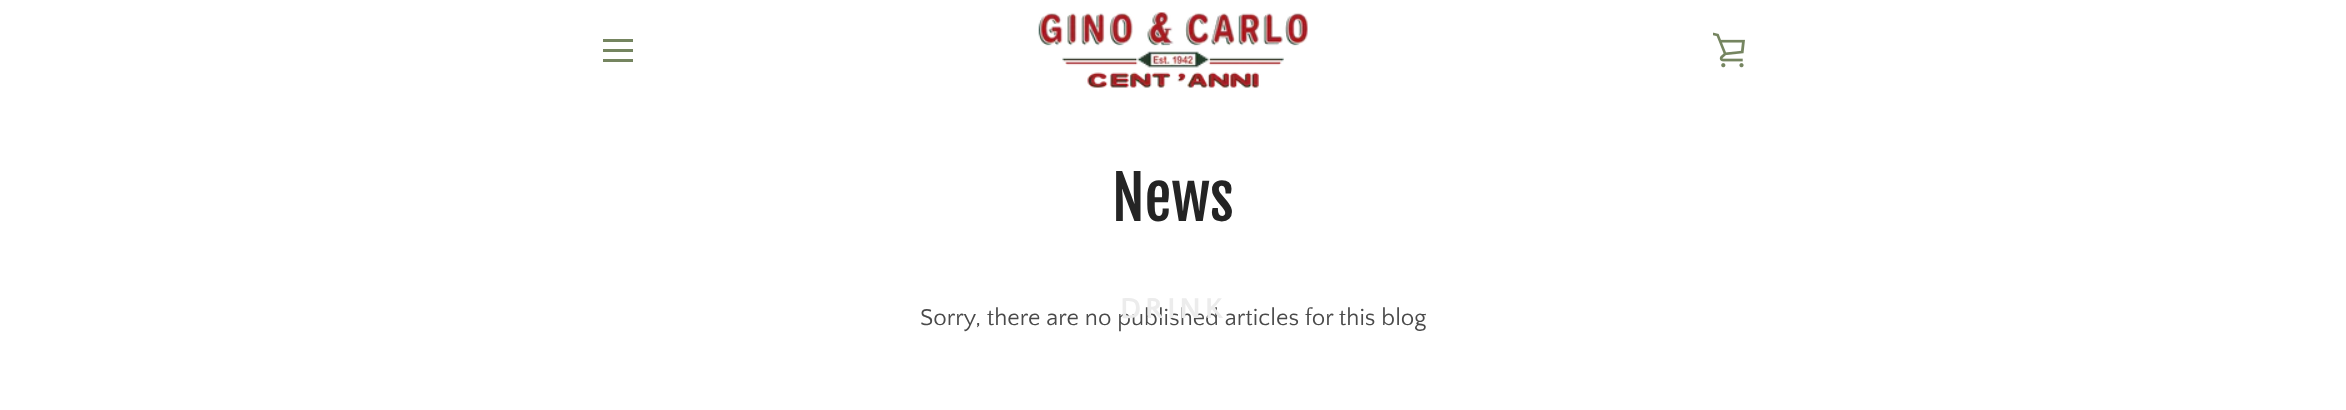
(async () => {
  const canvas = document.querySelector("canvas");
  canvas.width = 2346;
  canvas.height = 410;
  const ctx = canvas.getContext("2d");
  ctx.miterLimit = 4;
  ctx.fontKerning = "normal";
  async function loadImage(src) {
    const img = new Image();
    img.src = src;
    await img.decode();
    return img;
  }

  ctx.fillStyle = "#ffffff";
  ctx.fillRect(0, 0, 2346, 410);
  ctx.drawImage(await loadImage("img/1.png"), 1038, 12, 270, 76);
  ctx.drawImage(await loadImage("img/2.png"), 1713, 32, 32, 36);
  for (const [x, y, w, h, color] of [
    [603, 39, 30, 3, "#758560"],
    [603, 49, 30, 3, "#758560"],
    [603, 59, 30, 3, "#758560"],
  ]) {
    ctx.fillStyle = color;
    ctx.fillRect(x, y, w, h);
  }
  ctx.font = "60px Fjalla One";
  ctx.fillStyle = "#242424";
  ctx.fillText("News", 1112, 221);
  ctx.font = "24px Quattrocento Sans";
  ctx.fillStyle = "#4a4a4a";
  ctx.fillText("Sorry, there are no published articles for this blog", 920, 325);
  ctx.letterSpacing = "3.75px";
  ctx.font = "bold 30px Quattrocento Sans";
  ctx.fillStyle = "#ececec";
  ctx.fillText("DRINK", 1120, 318);
})();
